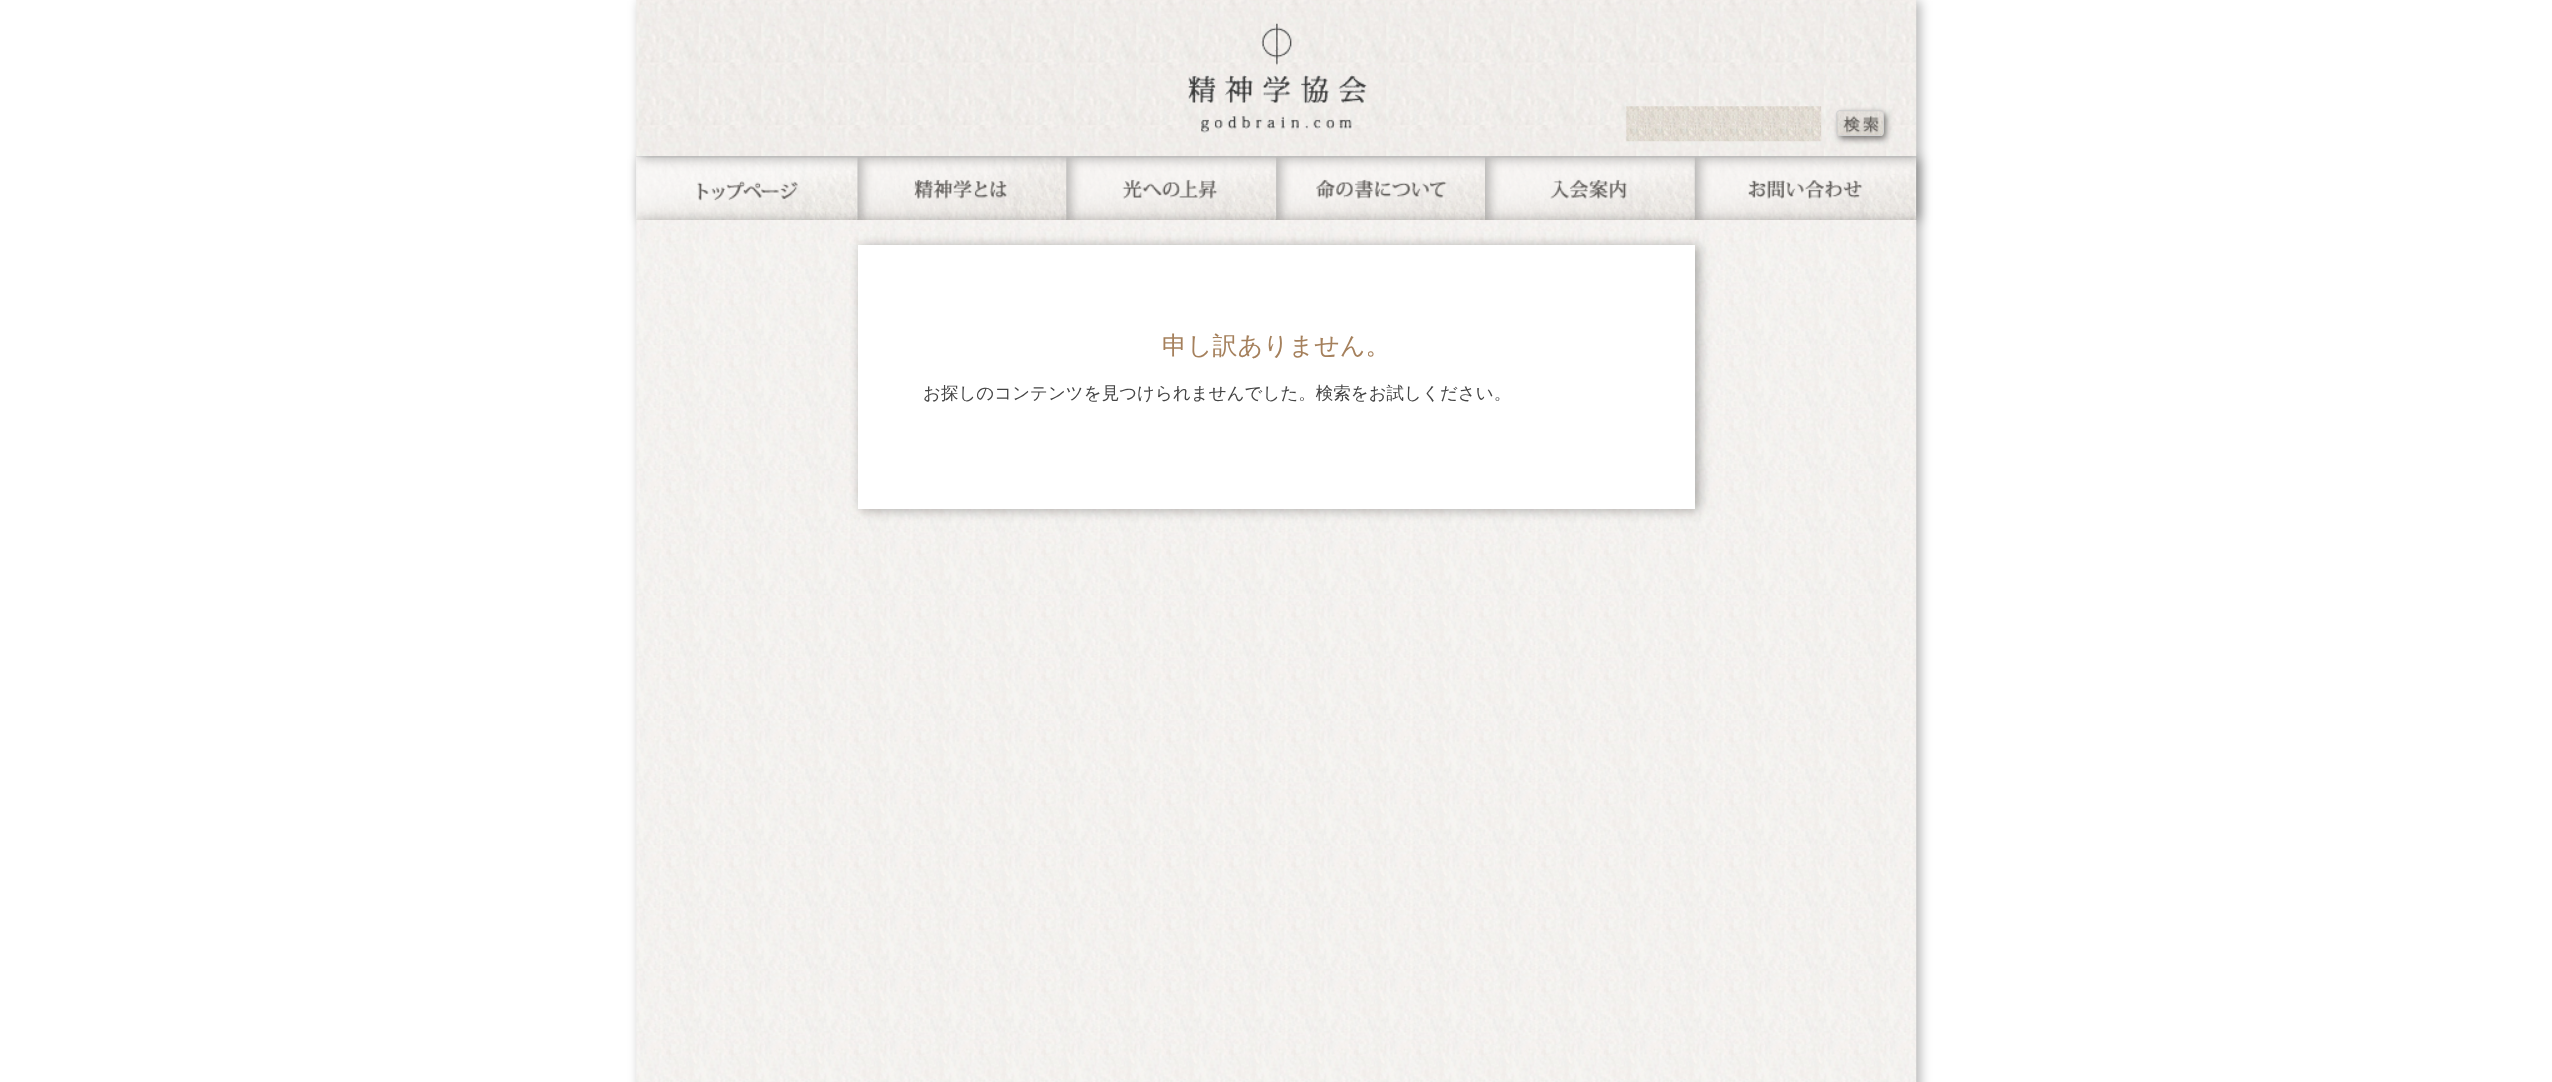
(async () => {
  const canvas = document.querySelector("canvas");
  canvas.width = 2552;
  canvas.height = 1082;
  const ctx = canvas.getContext("2d");
  ctx.miterLimit = 4;
  ctx.fontKerning = "normal";
  async function loadImage(src) {
    const img = new Image();
    img.src = src;
    await img.decode();
    return img;
  }
  let path;

  ctx.fillStyle = "#ffffff";
  ctx.fillRect(0, 0, 2552, 1082);
  ctx.save();
  path = new Path2D("M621 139H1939V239H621ZM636 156H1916V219H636Z");
  ctx.clip(path, "evenodd");
  ctx.fillStyle = "rgba(0, 0, 0, 0.3)";
  ctx.filter = "blur(6px)";
  ctx.beginPath();
  ctx.rect(640, 158, 1280, 62);
  ctx.fill();
  ctx.filter = "none";
  ctx.restore();
  ctx.fillStyle = "#ededed";
  ctx.fillRect(636, 156, 1280, 1);
  ctx.save();
  path = new Path2D("M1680 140H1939V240H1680ZM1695 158H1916V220H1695Z");
  ctx.clip(path, "evenodd");
  ctx.fillStyle = "rgba(0, 0, 0, 0.3)";
  ctx.filter = "blur(6px)";
  ctx.beginPath();
  ctx.rect(1699, 159, 221, 62);
  ctx.fill();
  ctx.filter = "none";
  ctx.restore();
  ctx.drawImage(await loadImage("img/10.png"), 1695, 157, 222, 63);
  ctx.fillStyle = "rgba(0, 0, 0, 0.3)";
  ctx.filter = "blur(6px)";
  ctx.beginPath();
  ctx.rect(1489, 159, 210, 62);
  ctx.fill();
  ctx.filter = "none";
  ctx.drawImage(await loadImage("img/9.png"), 1485, 157, 210, 63);
  ctx.filter = "blur(6px)";
  ctx.beginPath();
  ctx.rect(1280, 159, 209, 62);
  ctx.fill();
  ctx.filter = "none";
  ctx.drawImage(await loadImage("img/8.png"), 1276, 157, 209, 63);
  ctx.save();
  path = new Path2D("M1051 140H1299V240H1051ZM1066 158H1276V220H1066Z");
  ctx.clip(path, "evenodd");
  ctx.filter = "blur(6px)";
  ctx.beginPath();
  ctx.rect(1070, 159, 210, 62);
  ctx.fill();
  ctx.filter = "none";
  ctx.restore();
  ctx.drawImage(await loadImage("img/7.png"), 1066, 157, 211, 63);
  ctx.filter = "blur(6px)";
  ctx.beginPath();
  ctx.rect(861, 159, 209, 62);
  ctx.fill();
  ctx.filter = "none";
  ctx.drawImage(await loadImage("img/6.png"), 857, 157, 210, 63);
  ctx.filter = "blur(6px)";
  ctx.beginPath();
  ctx.rect(640, 159, 221, 62);
  ctx.fill();
  ctx.filter = "none";
  ctx.drawImage(await loadImage("img/5.png"), 636, 157, 222, 63);
  ctx.filter = "blur(6px)";
  ctx.beginPath();
  ctx.rect(640, 1, 1280, 157);
  ctx.fill();
  ctx.filter = "none";
  ctx.drawImage(await loadImage("img/3.png"), 636, 0, 1281, 157);
  ctx.drawImage(await loadImage("img/1.png"), 1626, 106, 196, 36);
  ctx.fillStyle = "rgba(0, 0, 0, 0.5)";
  ctx.filter = "blur(3px)";
  ctx.beginPath();
  ctx.roundRect(1839, 113, 47, 26, 4);
  ctx.fill();
  ctx.filter = "none";
  ctx.drawImage(await loadImage("img/2.png"), 1837, 111, 47, 25);
  ctx.beginPath();
  ctx.roundRect(1836.5, 110.5, 47, 25, 3.5);
  ctx.strokeStyle = "#d2d2d2";
  ctx.stroke();
  ctx.drawImage(await loadImage("img/4.png"), 1188, 23, 179, 110);
  ctx.fillStyle = "rgba(0, 0, 0, 0.3)";
  ctx.filter = "blur(6px)";
  ctx.beginPath();
  ctx.rect(640, 221, 1280, 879);
  ctx.fill();
  ctx.filter = "none";
  ctx.drawImage(await loadImage("img/11.png"), 636, 220, 1281, 862);
  ctx.filter = "blur(6px)";
  ctx.beginPath();
  ctx.rect(861, 246, 838, 264);
  ctx.fill();
  ctx.filter = "none";
  ctx.fillStyle = "#ffffff";
  ctx.fillRect(858, 245, 837, 264);
  ctx.font = "500 25px WenQuanYi Zen Hei";
  ctx.fillStyle = "#a5805c";
  ctx.fillText("申し訳ありません。", 1162, 354);
  ctx.font = "500 17.5px WenQuanYi Zen Hei";
  ctx.fillStyle = "#444444";
  ctx.fillText("お探しのコンテンツを見つけられませんでした。検索をお試しください。", 923, 399);
})();
